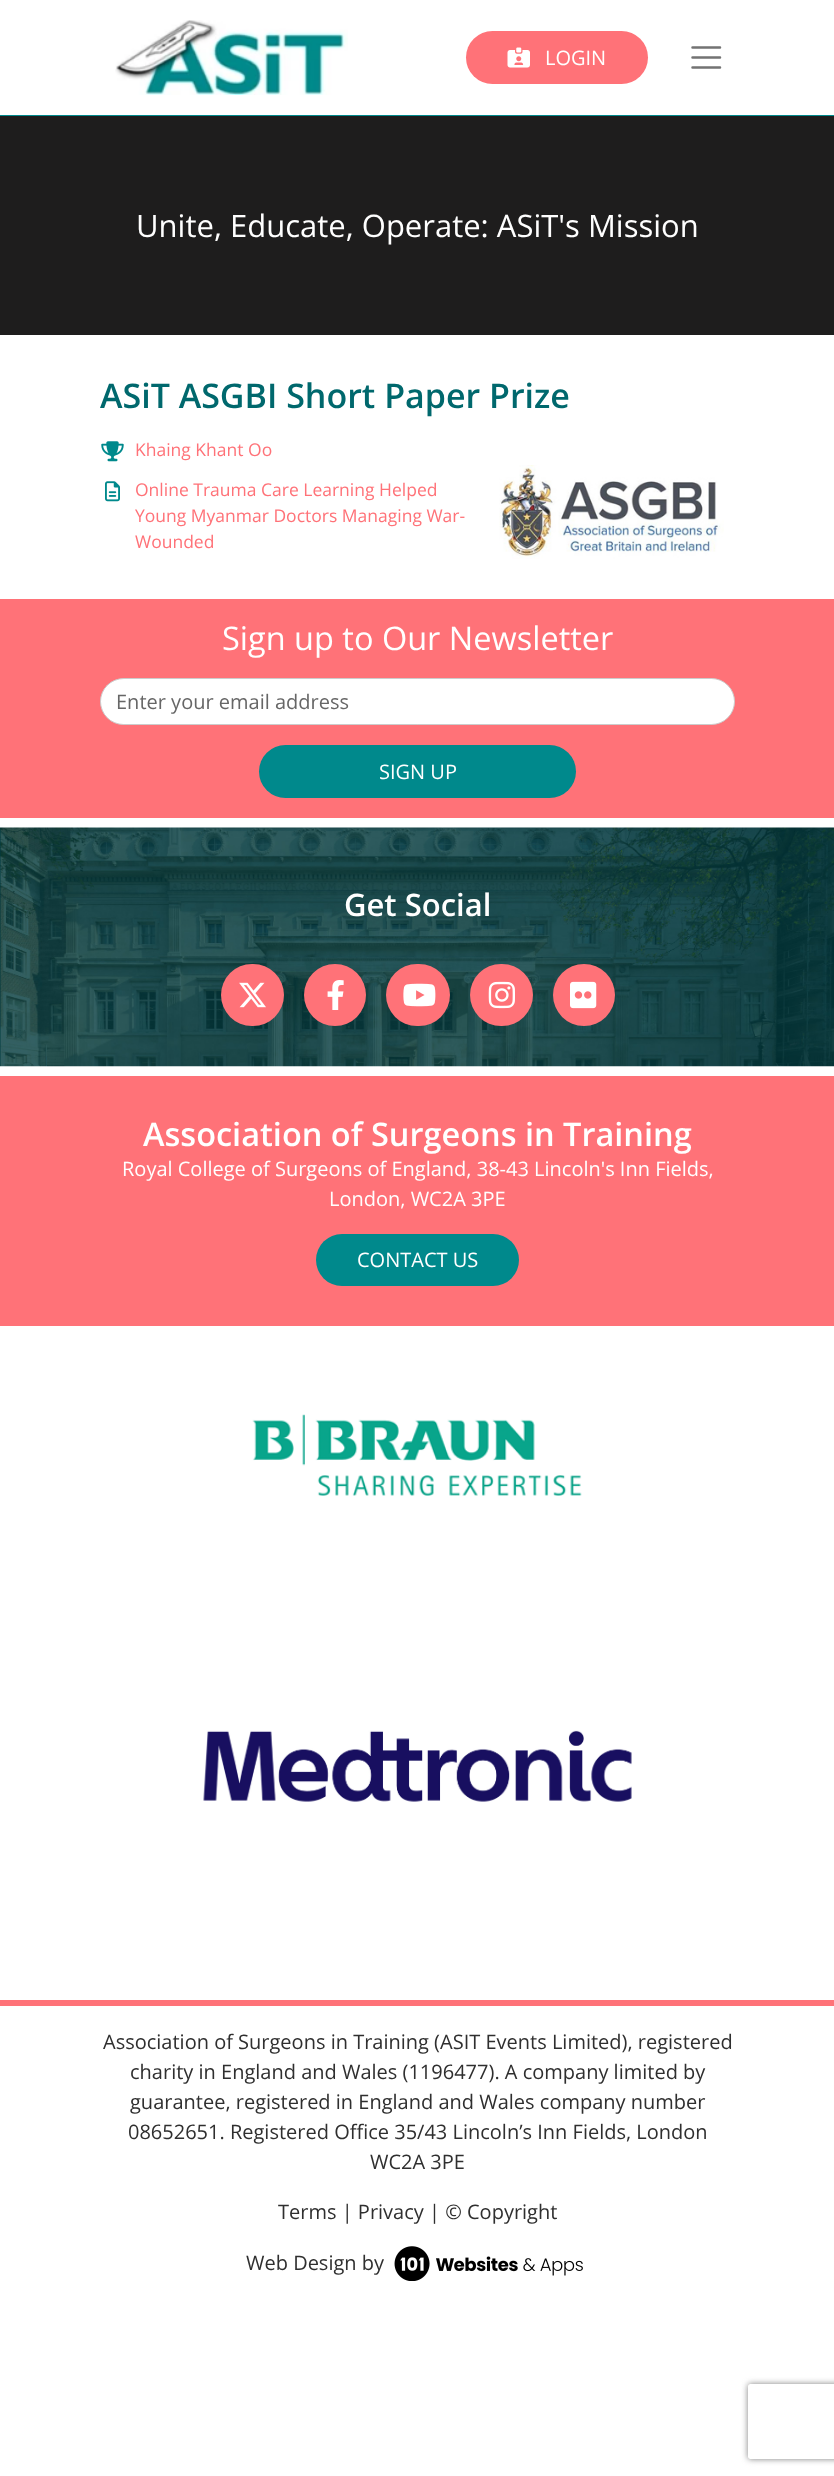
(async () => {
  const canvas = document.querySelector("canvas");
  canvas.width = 834;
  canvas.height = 2476;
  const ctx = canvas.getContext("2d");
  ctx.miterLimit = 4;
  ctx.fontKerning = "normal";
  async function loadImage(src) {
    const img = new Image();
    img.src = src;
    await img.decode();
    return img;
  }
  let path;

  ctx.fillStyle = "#ffffff";
  ctx.fillRect(0, 0, 834, 2476);
  ctx.drawImage(await loadImage("img/1.png"), 115, 20, 233, 75);
  ctx.fillStyle = "#ff7278";
  ctx.beginPath();
  ctx.roundRect(466, 31, 182, 53, 26.5);
  ctx.fill();
  ctx.drawImage(await loadImage("img/2.png"), 507, 47, 23, 21);
  path = new Path2D("M692.5 47.5H720M692.5 57.5H720M692.5 67.5H720");
  ctx.strokeStyle = "#737373";
  ctx.lineWidth = 2.5;
  ctx.lineCap = "round";
  ctx.stroke(path);
  ctx.fillStyle = "#00898c";
  ctx.fillRect(0, 115, 834, 1);
  ctx.fillStyle = "#1e1d1d";
  ctx.fillRect(0, 116, 834, 219);
  ctx.drawImage(await loadImage("img/3.png"), 101, 441, 23, 21);
  ctx.drawImage(await loadImage("img/4.png"), 105, 481, 15, 21);
  ctx.drawImage(await loadImage("img/5.png"), 499, 465, 225, 94);
  ctx.fillStyle = "#ff7278";
  ctx.fillRect(0, 599, 834, 219);
  ctx.fillStyle = "#ffffff";
  ctx.beginPath();
  ctx.roundRect(100.5, 678.5, 634, 46, 23);
  ctx.fill();
  ctx.strokeStyle = "#cccccc";
  ctx.lineWidth = 1;
  ctx.stroke();
  ctx.fillStyle = "#00898c";
  ctx.beginPath();
  ctx.roundRect(259, 745, 317, 53, 26.5);
  ctx.fill();
  ctx.drawImage(await loadImage("img/6.png"), 0, 827, 834, 240);
  ctx.fillStyle = "#ff7278";
  ctx.beginPath();
  ctx.roundRect(221, 964, 63, 62, 31);
  ctx.fill();
  ctx.drawImage(await loadImage("img/7.png"), 239, 982, 27, 26);
  ctx.beginPath();
  ctx.arc(335, 995, 31, 0, Math.PI * 2);
  ctx.fill();
  ctx.drawImage(await loadImage("img/8.png"), 327, 980, 17, 30);
  ctx.beginPath();
  ctx.roundRect(386, 964, 64, 62, 31);
  ctx.fill();
  ctx.drawImage(await loadImage("img/9.png"), 403, 983, 33, 24);
  ctx.beginPath();
  ctx.roundRect(470, 964, 63, 62, 31);
  ctx.fill();
  ctx.drawImage(await loadImage("img/10.png"), 488, 981, 27, 28);
  ctx.beginPath();
  ctx.arc(584, 995, 31, 0, Math.PI * 2);
  ctx.fill();
  ctx.drawImage(await loadImage("img/11.png"), 570, 981, 27, 28);
  ctx.fillRect(0, 1076, 834, 250);
  ctx.fillStyle = "#00898c";
  ctx.beginPath();
  ctx.roundRect(316, 1234, 203, 52, 26);
  ctx.fill();
  ctx.fillStyle = "#ff7278";
  ctx.fillRect(0, 2000, 834, 6);
  ctx.drawImage(await loadImage("img/12.png"), 252, 1414, 330, 82);
  ctx.drawImage(await loadImage("img/13.png"), 203, 1730, 429, 72);
  ctx.drawImage(await loadImage("img/14.png"), 394, 2246, 189, 35);
  ctx.save();
  path = new Path2D("M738 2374H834V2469H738ZM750.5 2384H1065.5C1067 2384 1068 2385 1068 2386.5V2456.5C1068 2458 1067 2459 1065.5 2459H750.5C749 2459 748 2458 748 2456.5V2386.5C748 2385 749 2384 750.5 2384Z");
  ctx.clip(path, "evenodd");
  ctx.fillStyle = "#808080";
  ctx.filter = "blur(3px)";
  ctx.beginPath();
  ctx.roundRect(748, 2384, 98, 75, 2.5);
  ctx.fill();
  ctx.filter = "none";
  ctx.restore();
  ctx.font = "20px Open Sans";
  ctx.fillStyle = "#ffffff";
  ctx.fillText("LOGIN", 545, 65);
  ctx.font = "31px Open Sans";
  ctx.fillText("Unite, Educate, Operate: ASiT's Mission", 136, 237);
  ctx.font = "600 34px Open Sans";
  ctx.fillStyle = "#00686d";
  ctx.fillText("ASiT ASGBI Short Paper Prize", 100, 408);
  ctx.font = "17.5px Open Sans";
  ctx.fillStyle = "#ff7278";
  for (const [text, x, y] of [
    ["Khaing Khant Oo", 135, 456],
    ["Online Trauma Care Learning Helped", 135, 496],
    ["Young Myanmar Doctors Managing War-", 135, 522],
    ["Wounded", 135, 548],
  ]) {
    ctx.fillText(text, x, y);
  }
  ctx.font = "32.5px Open Sans";
  ctx.fillStyle = "#ffffff";
  ctx.fillText("Sign up to Our Newsletter", 222, 650);
  ctx.font = "20px Open Sans";
  ctx.fillStyle = "#666666";
  ctx.fillText("Enter your email address", 116, 709);
  ctx.fillStyle = "#ffffff";
  ctx.fillText("SIGN UP", 379, 779);
  ctx.font = "600 31px Open Sans";
  ctx.fillText("Get Social", 344, 916);
  ctx.font = "600 32.5px Open Sans";
  ctx.fillText("Association of Surgeons in Training", 143, 1146);
  ctx.font = "20px Open Sans";
  for (const [text, x, y] of [
    ["Royal College of Surgeons of England, 38-43 Lincoln's Inn Fields,", 122, 1176],
    ["London, WC2A 3PE", 329, 1206],
    ["CONTACT US", 357, 1267],
  ]) {
    ctx.fillText(text, x, y);
  }
  ctx.fillStyle = "#2f2f2f";
  for (const [text, x, y] of [
    ["Association of Surgeons in Training (ASIT Events Limited), registered", 103, 2049],
    ["charity in England and Wales (1196477). A company limited by", 130, 2079],
    ["guarantee, registered in England and Wales company number", 130, 2109],
    ["08652651. Registered Office 35/43 Lincoln’s Inn Fields, London", 128, 2139],
    ["WC2A 3PE", 370, 2169],
    ["Terms | Privacy | © Copyright", 278, 2219],
    ["Web Design by", 246, 2270],
  ]) {
    ctx.fillText(text, x, y);
  }
})();
